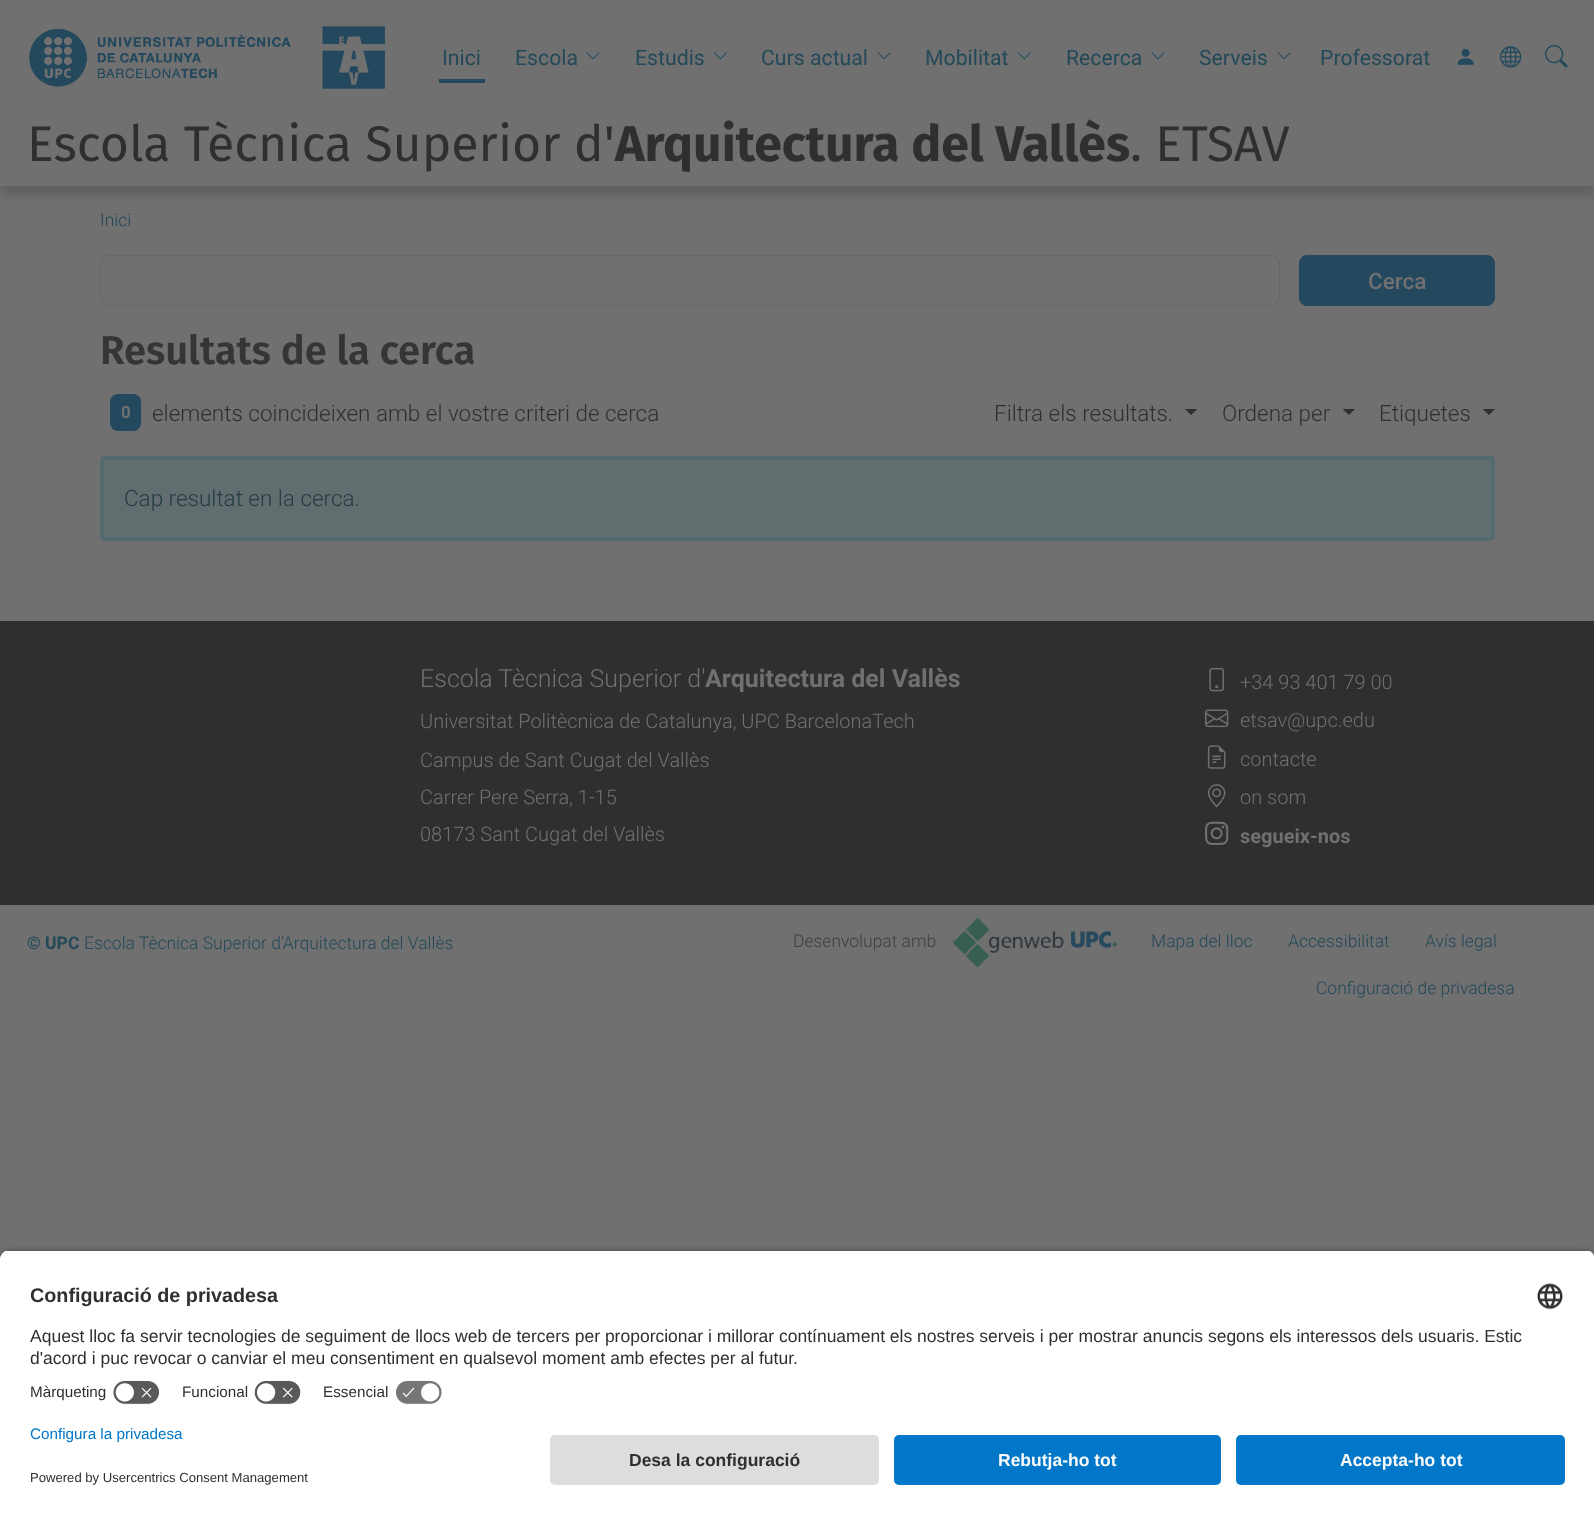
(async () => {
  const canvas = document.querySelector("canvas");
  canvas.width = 1594;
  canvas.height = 1514;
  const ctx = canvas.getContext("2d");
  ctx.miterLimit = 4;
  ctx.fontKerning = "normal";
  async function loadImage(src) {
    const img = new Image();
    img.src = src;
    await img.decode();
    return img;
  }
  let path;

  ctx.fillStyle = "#707070";
  ctx.fillRect(0, 0, 1594, 1514);
  ctx.drawImage(await loadImage("img/1.png"), 29, 29, 262, 58);
  ctx.drawImage(await loadImage("img/2.png"), 322, 26, 63, 63);
  ctx.fillStyle = "#24495e";
  ctx.fillRect(439, 79, 46, 4);
  ctx.drawImage(await loadImage("img/3.png"), 586, 52, 14, 8);
  ctx.drawImage(await loadImage("img/4.png"), 714, 52, 13, 8);
  ctx.drawImage(await loadImage("img/5.png"), 877, 52, 14, 8);
  ctx.drawImage(await loadImage("img/5.png"), 1017, 52, 14, 8);
  ctx.drawImage(await loadImage("img/3.png"), 1151, 52, 14, 8);
  ctx.drawImage(await loadImage("img/5.png"), 1277, 52, 14, 8);
  ctx.drawImage(await loadImage("img/6.png"), 1457, 48, 17, 17);
  ctx.drawImage(await loadImage("img/7.png"), 1500, 46, 22, 22);
  ctx.drawImage(await loadImage("img/8.png"), 1545, 45, 23, 23);
  ctx.save();
  ctx.beginPath();
  ctx.rect(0, 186, 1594, 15);
  ctx.clip();
  ctx.fillStyle = "rgba(36, 36, 36, 0.2)";
  ctx.filter = "blur(5px)";
  ctx.beginPath();
  ctx.rect(0, 124, 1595, 71);
  ctx.fill();
  ctx.filter = "none";
  ctx.restore();
  ctx.beginPath();
  ctx.roundRect(100.5, 255.5, 1179, 50, 8.5);
  ctx.strokeStyle = "#666869";
  ctx.stroke();
  ctx.beginPath();
  ctx.roundRect(1299.5, 255.5, 195, 50, 7.5);
  ctx.fill();
  ctx.strokeStyle = "#24495e";
  ctx.stroke();
  ctx.beginPath();
  ctx.roundRect(110, 394, 31, 37, 8);
  ctx.fill();
  ctx.fillStyle = "#2e2f30";
  path = new Path2D("M1185 409H1197.5L1191 415Z");
  ctx.fill(path);
  path = new Path2D("M1342.5 409H1355L1349 415Z");
  ctx.fill(path);
  path = new Path2D("M1482.5 409H1495L1489 415Z");
  ctx.fill(path);
  ctx.fillStyle = "#626d6f";
  ctx.beginPath();
  ctx.roundRect(102, 458, 1391, 81, 3);
  ctx.fill();
  ctx.strokeStyle = "#536a6e";
  ctx.lineWidth = 4;
  ctx.stroke();
  ctx.fillStyle = "#2e2f30";
  ctx.fillRect(0, 621, 1594, 284);
  ctx.drawImage(await loadImage("img/9.png"), 1209, 667, 15, 25);
  ctx.drawImage(await loadImage("img/10.png"), 1205, 709, 24, 19);
  ctx.drawImage(await loadImage("img/11.png"), 1207, 745, 19, 24);
  ctx.drawImage(await loadImage("img/12.png"), 1207, 784, 19, 24);
  ctx.drawImage(await loadImage("img/13.png"), 1205, 821, 24, 24);
  ctx.drawImage(await loadImage("img/14.png"), 952, 917, 166, 51);
  ctx.fillStyle = "rgba(0, 0, 0, 0.8)";
  ctx.filter = "blur(4.5px)";
  ctx.beginPath();
  ctx.roundRect(0, 1254, 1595, 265, 10);
  ctx.fill();
  ctx.filter = "none";
  ctx.save();
  path = new Path2D("M10 1250H1585C1590.5 1250 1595 1254.5 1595 1260V1425H0V1260C0 1254.5 4.5 1250 10 1250Z");
  ctx.clip(path);
  ctx.fillStyle = "#ffffff";
  ctx.fillRect(0, 1251, 1594, 174);
  ctx.fillRect(0, 1251, 1594, 124);
  ctx.restore();
  ctx.drawImage(await loadImage("img/15.png"), 1537, 1283, 26, 27);
  ctx.drawImage(await loadImage("img/16.png"), 112, 1380, 48, 25);
  ctx.drawImage(await loadImage("img/17.png"), 254, 1380, 47, 25);
  ctx.drawImage(await loadImage("img/18.png"), 395, 1380, 48, 25);
  ctx.fillStyle = "#ffffff";
  ctx.fillRect(0, 1425, 1594, 89);
  ctx.fillStyle = "#dddddd";
  ctx.beginPath();
  ctx.roundRect(550, 1435, 329, 50, 5);
  ctx.fill();
  ctx.fillStyle = "#0077c8";
  ctx.beginPath();
  ctx.roundRect(894, 1435, 327, 50, 5);
  ctx.fill();
  ctx.beginPath();
  ctx.roundRect(1236, 1435, 329, 50, 5);
  ctx.fill();
  ctx.font = "21.25px Roboto";
  ctx.fillStyle = "#244959";
  for (const [text, x, y] of [
    ["Inici", 442, 65],
    ["Escola", 515, 65],
    ["Estudis", 635, 65],
    ["Curs actual", 761, 65],
    ["Mobilitat", 925, 65],
    ["Recerca", 1066, 65],
    ["Serveis", 1199, 65],
    ["Professorat", 1320, 65],
  ]) {
    ctx.fillText(text, x, y);
  }
  ctx.font = "50px Fira Sans";
  ctx.fillStyle = "#2e2f30";
  ctx.fillText("Escola Tècnica Superior d'", 27, 161);
  ctx.font = "bold 50px Fira Sans";
  ctx.fillText("Arquitectura del Vallès", 615, 161);
  ctx.font = "50px Fira Sans";
  ctx.fillText(". ETSAV", 1130, 161);
  ctx.font = "300 17.5px Roboto";
  ctx.fillStyle = "#244959";
  ctx.fillText("Inici", 100, 226);
  ctx.font = "500 22.5px Roboto";
  ctx.fillStyle = "#707070";
  ctx.fillText("Cerca", 1368, 289);
  ctx.font = "600 40px Fira Sans";
  ctx.fillStyle = "#333537";
  ctx.fillText("Resultats de la cerca", 100, 364);
  ctx.font = "bold 17px Roboto";
  ctx.fillStyle = "#707070";
  ctx.fillText("0", 121, 418);
  ctx.font = "300 22.5px Roboto";
  ctx.fillStyle = "#2e2f30";
  for (const [text, x, y] of [
    ["elements coincideixen amb el vostre criteri de cerca", 152, 421],
    ["Filtra els resultats.", 994, 421],
    ["Ordena per", 1222, 421],
    ["Etiquetes", 1379, 421],
  ]) {
    ctx.fillText(text, x, y);
  }
  ctx.fillStyle = "#253c41";
  ctx.fillText("Cap resultat en la cerca.", 124, 506);
  ctx.font = "300 25px Roboto";
  ctx.fillStyle = "#707070";
  ctx.fillText("Escola Tècnica Superior d'", 420, 687);
  ctx.font = "bold 25px Roboto";
  ctx.fillText("Arquitectura del Vallès", 705, 687);
  ctx.font = "300 20px Roboto";
  for (const [text, x, y] of [
    ["Universitat Politècnica de Catalunya, UPC BarcelonaTech", 420, 728],
    ["Campus de Sant Cugat del Vallès", 420, 767],
    ["Carrer Pere Serra, 1-15", 420, 804],
    ["08173 Sant Cugat del Vallès", 420, 841],
    ["+34 93 401 79 00", 1240, 689],
    ["etsav@upc.edu", 1240, 727],
    ["contacte", 1240, 766],
    ["on som", 1240, 804],
  ]) {
    ctx.fillText(text, x, y);
  }
  ctx.font = "bold 20px Roboto";
  ctx.fillText("segueix-nos", 1240, 843);
  ctx.font = "bold 17.5px Roboto";
  ctx.fillStyle = "#244959";
  ctx.fillText("© UPC", 27, 949);
  ctx.font = "300 17.5px Roboto";
  ctx.fillText("Escola Tècnica Superior d'Arquitectura del Vallès", 84, 949);
  ctx.fillStyle = "#3e3f40";
  ctx.fillText("Desenvolupat amb", 793, 947);
  ctx.fillStyle = "#244959";
  for (const [text, x, y] of [
    ["Mapa del lloc", 1151, 947],
    ["Accessibilitat", 1288, 947],
    ["Avís legal", 1425, 947],
    ["Configuració de privadesa", 1316, 994],
  ]) {
    ctx.fillText(text, x, y);
  }
  ctx.font = "bold 19.75px Liberation Sans";
  ctx.fillStyle = "#2e2f30";
  ctx.fillText("Configuració de privadesa", 30, 1302);
  ctx.font = "17.5px Liberation Sans";
  ctx.fillText("Aquest lloc fa servir tecnologies de seguiment de llocs web de tercers per proporcionar i millorar contínuament els nostres serveis i per mostrar anuncis segons els interessos dels usuaris. Estic", 30, 1342);
  ctx.fillText("d'acord i puc revocar o canviar el meu consentiment en qualsevol moment amb efectes per al futur.", 30, 1364);
  ctx.font = "15.25px Liberation Sans";
  for (const [text, x, y] of [
    ["Màrqueting", 30, 1397],
    ["Funcional", 182, 1397],
    ["Essencial", 323, 1397],
  ]) {
    ctx.fillText(text, x, y);
  }
  ctx.fillStyle = "#0077c8";
  ctx.fillText("Configura la privadesa", 30, 1439);
  ctx.font = "13.1px Liberation Sans";
  ctx.fillStyle = "#2e2f30";
  ctx.fillText("Powered by Usercentrics Consent Management", 30, 1482);
  ctx.font = "bold 17.5px Liberation Sans";
  ctx.fillText("Desa la configuració", 629, 1466);
  ctx.fillStyle = "#fafafa";
  ctx.fillText("Rebutja-ho tot", 998, 1466);
  ctx.fillText("Accepta-ho tot", 1340, 1466);
})();
